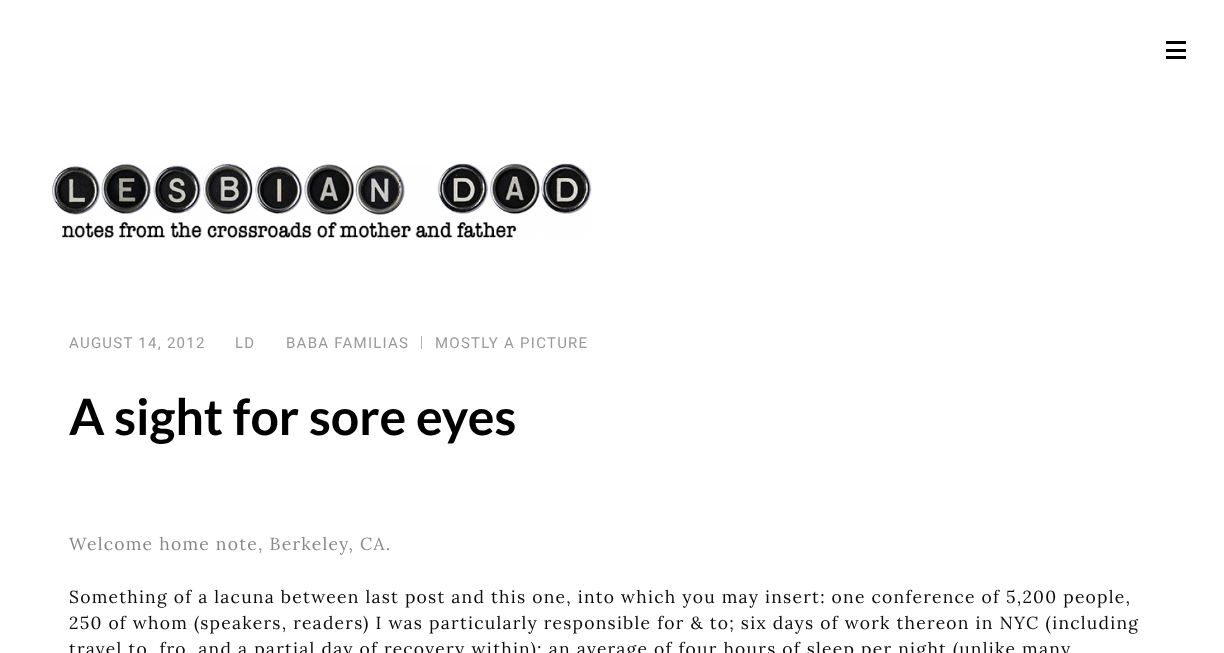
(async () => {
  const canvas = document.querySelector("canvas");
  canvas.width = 1224;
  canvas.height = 653;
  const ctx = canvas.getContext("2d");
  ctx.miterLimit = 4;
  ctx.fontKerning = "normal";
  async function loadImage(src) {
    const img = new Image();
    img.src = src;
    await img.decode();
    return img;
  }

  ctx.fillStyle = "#ffffff";
  ctx.fillRect(0, 0, 1224, 653);
  for (const [x, y, w, h, color] of [
    [1166, 41, 20, 3, "#000000"],
    [1166, 49, 20, 3, "#000000"],
    [1166, 56, 20, 3, "#000000"],
  ]) {
    ctx.fillStyle = color;
    ctx.fillRect(x, y, w, h);
  }
  ctx.drawImage(await loadImage("img/1.png"), 52, 163, 540, 76);
  ctx.fillStyle = "#b3b3b3";
  ctx.fillRect(421, 336, 1, 13);
  ctx.letterSpacing = "1.25px";
  ctx.font = "15px Roboto";
  ctx.fillStyle = "#999999";
  for (const [text, x, y] of [
    ["AUGUST 14, 2012", 69, 348],
    ["LD", 235, 348],
    ["BABA FAMILIAS", 286, 348],
    ["MOSTLY A PICTURE", 435, 348],
  ]) {
    ctx.fillText(text, x, y);
  }
  ctx.letterSpacing = "0px";
  ctx.font = "bold 50px Lato";
  ctx.fillStyle = "#000000";
  ctx.fillText("A sight for sore eyes", 69, 435);
  ctx.letterSpacing = "1.25px";
  ctx.font = "17.5px Lora";
  ctx.fillStyle = "#888888";
  ctx.fillText("Welcome home note, Berkeley, CA.", 69, 550);
  ctx.fillStyle = "#0c0c0c";
  for (const [text, x, y] of [
    ["Something of a lacuna between last post and this one, into which you may insert: one conference of 5,200 people,", 69, 603],
    ["250 of whom (speakers, readers) I was particularly responsible for & to; six days of work thereon in NYC (including", 69, 629],
    ["travel to, fro, and a partial day of recovery within); an average of four hours of sleep per night (unlike many", 69, 655],
  ]) {
    ctx.fillText(text, x, y);
  }
})();
